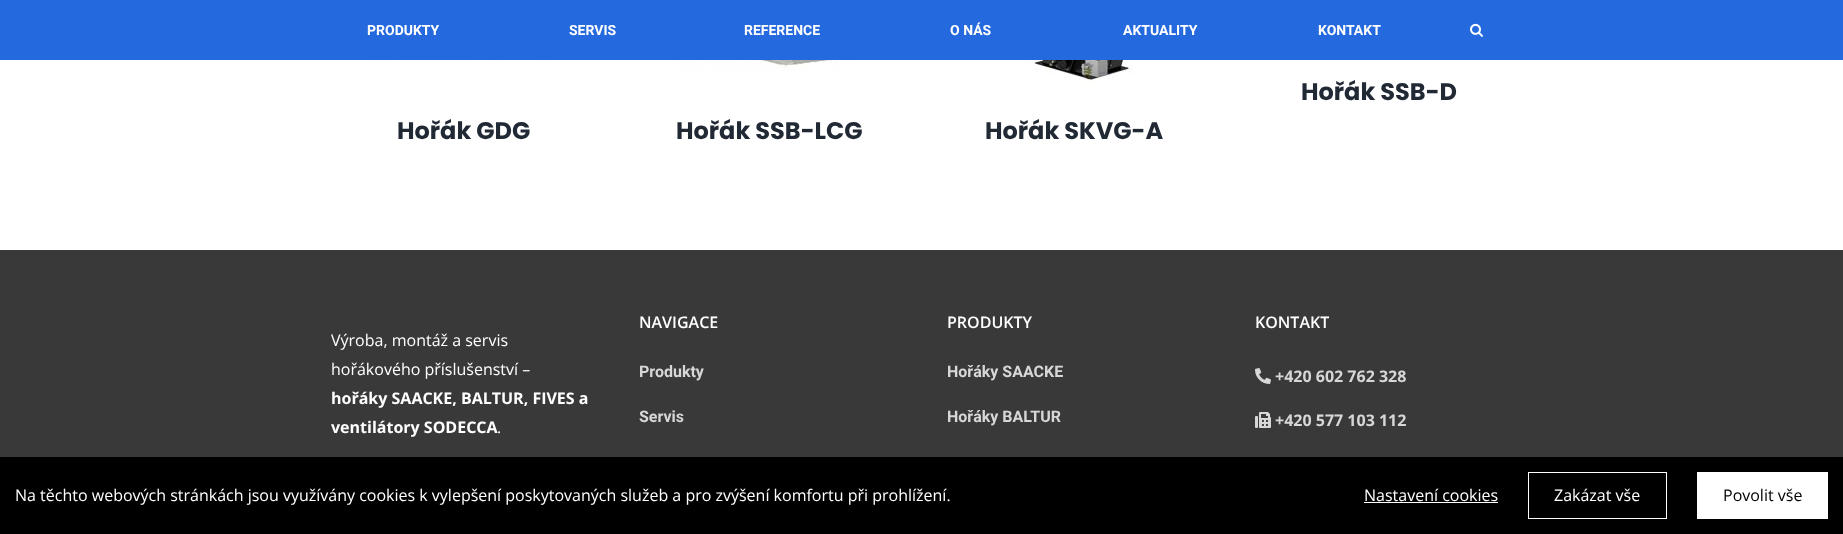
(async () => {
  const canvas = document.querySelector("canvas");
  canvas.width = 1843;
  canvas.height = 534;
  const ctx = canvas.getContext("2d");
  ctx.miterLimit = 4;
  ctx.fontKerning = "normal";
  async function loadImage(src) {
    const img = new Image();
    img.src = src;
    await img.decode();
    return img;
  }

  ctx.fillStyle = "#ffffff";
  ctx.fillRect(0, 0, 1843, 534);
  ctx.fillStyle = "#2469dd";
  ctx.fillRect(0, 0, 1843, 60);
  ctx.drawImage(await loadImage("img/1.png"), 1470, 23, 13, 14);
  ctx.drawImage(await loadImage("img/2.png"), 357, 60, 189, 2);
  ctx.drawImage(await loadImage("img/3.png"), 673, 60, 177, 11);
  ctx.drawImage(await loadImage("img/4.png"), 987, 60, 162, 27);
  ctx.fillStyle = "#393939";
  ctx.fillRect(0, 250, 1843, 207);
  ctx.drawImage(await loadImage("img/5.png"), 1255, 368, 16, 16);
  ctx.drawImage(await loadImage("img/6.png"), 1255, 412, 16, 16);
  ctx.fillStyle = "#000000";
  ctx.fillRect(0, 457, 1843, 77);
  ctx.fillStyle = "#ffffff";
  ctx.fillRect(1364, 502, 134, 1);
  ctx.strokeStyle = "#ffffff";
  ctx.strokeRect(1528.5, 472.5, 138, 46);
  ctx.fillRect(1697, 472, 131, 47);
  ctx.font = "bold 14px Roboto";
  for (const [text, x, y] of [
    ["PRODUKTY", 367, 35],
    ["SERVIS", 569, 35],
    ["REFERENCE", 744, 35],
    ["O NÁS", 950, 35],
    ["AKTUALITY", 1123, 35],
    ["KONTAKT", 1318, 35],
  ]) {
    ctx.fillText(text, x, y);
  }
  ctx.font = "bold 24px Poppins";
  ctx.fillStyle = "#212934";
  for (const [text, x, y] of [
    ["Hořák SSB-D", 1301, 100],
    ["Hořák GDG", 397, 139],
    ["Hořák SSB-LCG", 676, 139],
    ["Hořák SKVG-A", 985, 139],
  ]) {
    ctx.fillText(text, x, y);
  }
  ctx.font = "16px Open Sans";
  ctx.fillStyle = "#ffffff";
  ctx.fillText("Výroba, montáž a servis", 331, 346);
  ctx.fillText("hořákového příslušenství –", 331, 375);
  ctx.font = "bold 16px Open Sans";
  ctx.fillText("hořáky SAACKE, BALTUR, FIVES a", 331, 404);
  ctx.fillText("ventilátory SODECCA", 331, 433);
  ctx.font = "16px Open Sans";
  ctx.fillText(".", 497, 433);
  ctx.font = "600 16px Open Sans";
  ctx.fillText("NAVIGACE", 639, 328);
  ctx.font = "bold 16px Roboto";
  ctx.fillStyle = "#d7d7d7";
  ctx.fillText("Produkty", 639, 377);
  ctx.fillText("Servis", 639, 422);
  ctx.font = "600 16px Open Sans";
  ctx.fillStyle = "#ffffff";
  ctx.fillText("PRODUKTY", 947, 328);
  ctx.font = "bold 16px Roboto";
  ctx.fillStyle = "#d7d7d7";
  ctx.fillText("Hořáky SAACKE", 947, 377);
  ctx.fillText("Hořáky BALTUR", 947, 422);
  ctx.font = "600 16px Open Sans";
  ctx.fillStyle = "#ffffff";
  ctx.fillText("KONTAKT", 1255, 328);
  ctx.font = "bold 16px Open Sans";
  ctx.fillStyle = "#d7d7d7";
  ctx.fillText("+420 602 762 328", 1275, 382);
  ctx.fillText("+420 577 103 112", 1275, 426);
  ctx.font = "16px Open Sans";
  ctx.fillStyle = "#ffffff";
  for (const [text, x, y] of [
    ["Na těchto webových stránkách jsou využívány cookies k vylepšení poskytovaných služeb a pro zvýšení komfortu při prohlížení.", 15, 501],
    ["Nastavení cookies", 1364, 501],
    ["Zakázat vše", 1554, 501],
  ]) {
    ctx.fillText(text, x, y);
  }
  ctx.fillStyle = "#000000";
  ctx.fillText("Povolit vše", 1723, 501);
})();
